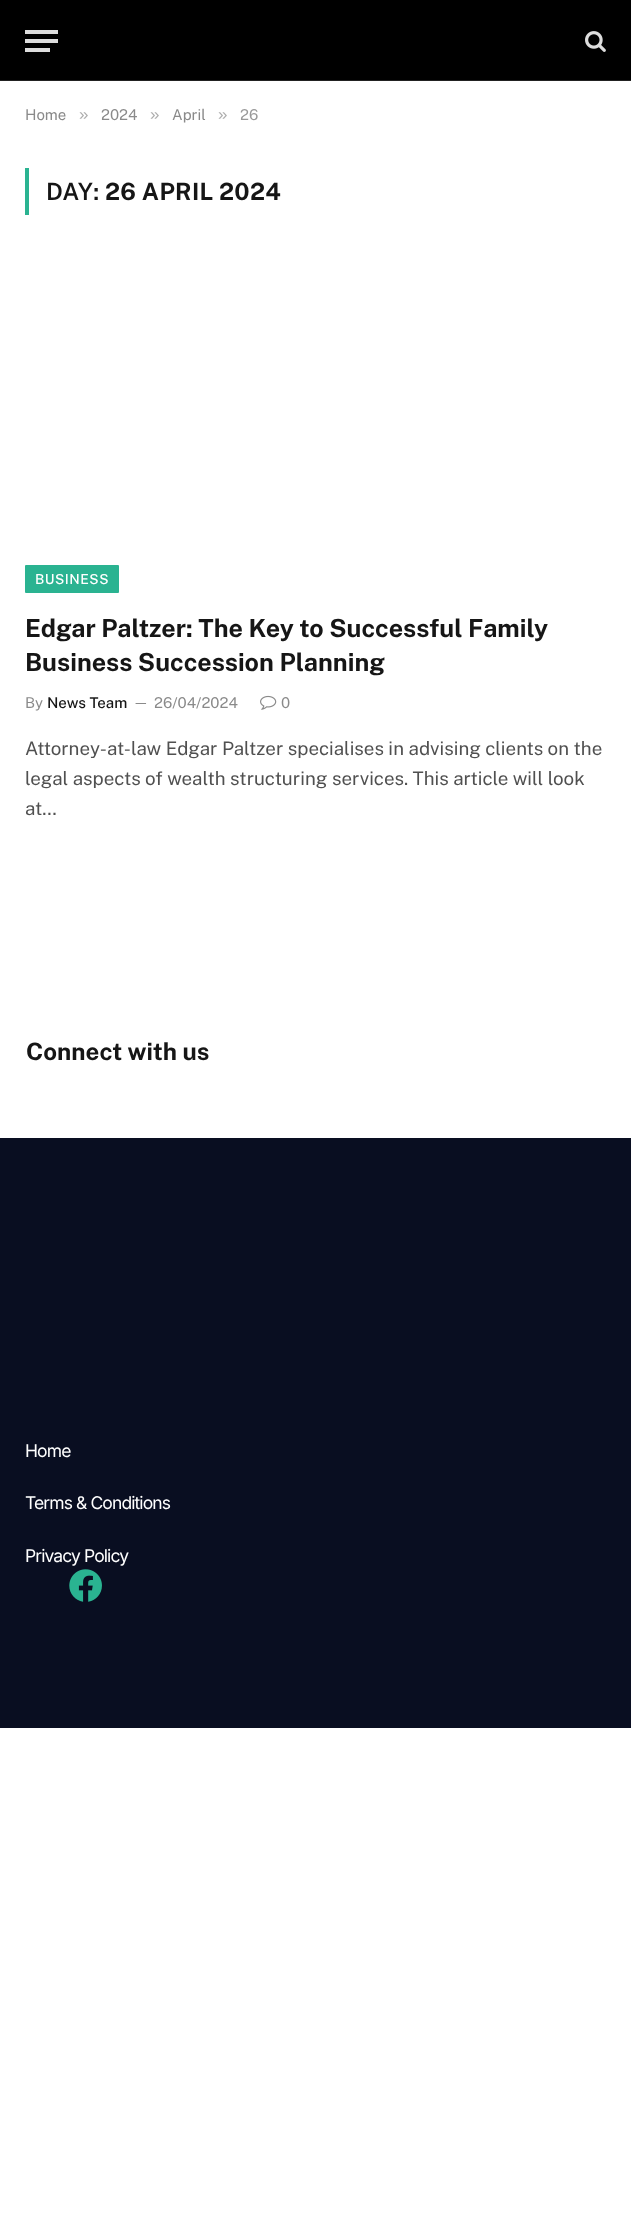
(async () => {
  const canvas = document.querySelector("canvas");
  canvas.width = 631;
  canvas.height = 2223;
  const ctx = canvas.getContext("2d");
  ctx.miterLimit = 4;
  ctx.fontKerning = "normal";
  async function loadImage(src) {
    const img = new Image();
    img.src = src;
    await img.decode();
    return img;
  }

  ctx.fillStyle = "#ffffff";
  ctx.fillRect(0, 0, 631, 2223);
  for (const [x, y, w, h, color] of [
    [0, 0, 631, 80, "#000000"],
    [0, 80, 631, 1, "#222222"],
    [25, 48, 25, 4, "#dddddd"],
    [25, 30, 33, 4, "#dddddd"],
    [25, 39, 33, 4, "#dddddd"],
  ]) {
    ctx.fillStyle = color;
    ctx.fillRect(x, y, w, h);
  }
  ctx.drawImage(await loadImage("img/1.png"), 585, 31, 21, 21);
  ctx.fillStyle = "#2ab391";
  ctx.fillRect(25, 168, 4, 47);
  ctx.beginPath();
  ctx.roundRect(25, 565, 94, 28, 1);
  ctx.fill();
  ctx.drawImage(await loadImage("img/2.png"), 260, 695, 17, 15);
  ctx.fillStyle = "#090e21";
  ctx.fillRect(0, 1138, 631, 590);
  ctx.drawImage(await loadImage("img/3.png"), 69, 1569, 33, 33);
  ctx.font = "15px Public Sans";
  ctx.fillStyle = "#8a8a8a";
  ctx.fillText("Home", 25, 120);
  ctx.font = "17px Liberation Sans";
  ctx.fillStyle = "#adadad";
  ctx.fillText("»", 79, 120);
  ctx.font = "15px Public Sans";
  ctx.fillStyle = "#8a8a8a";
  ctx.fillText("2024", 101, 120);
  ctx.font = "17px Liberation Sans";
  ctx.fillStyle = "#adadad";
  ctx.fillText("»", 150, 120);
  ctx.font = "15px Public Sans";
  ctx.fillStyle = "#8a8a8a";
  ctx.fillText("April", 172, 120);
  ctx.font = "17px Liberation Sans";
  ctx.fillStyle = "#adadad";
  ctx.fillText("»", 218, 120);
  ctx.font = "15px Public Sans";
  ctx.fillStyle = "#999999";
  ctx.fillText("26", 240, 120);
  ctx.letterSpacing = "0.25px";
  ctx.font = "600 23.75px Public Sans";
  ctx.fillStyle = "#161616";
  ctx.fillText("DAY:", 46, 200);
  ctx.font = "bold 23.75px Public Sans";
  ctx.fillText("26 APRIL 2024", 105, 200);
  ctx.letterSpacing = "0.5px";
  ctx.font = "500 13.75px Public Sans";
  ctx.fillStyle = "#ffffff";
  ctx.fillText("BUSINESS", 35, 584);
  ctx.letterSpacing = "0px";
  ctx.font = "bold 25px Public Sans";
  ctx.fillStyle = "#161616";
  ctx.fillText("Edgar Paltzer: The Key to Successful Family", 25, 637);
  ctx.fillText("Business Succession Planning", 25, 671);
  ctx.font = "15px Public Sans";
  ctx.fillStyle = "#8a8a8a";
  ctx.fillText("By", 25, 708);
  ctx.font = "500 15px Public Sans";
  ctx.fillStyle = "#161616";
  ctx.fillText("News Team", 47, 708);
  ctx.font = "14px Public Sans";
  ctx.fillStyle = "#8a8a8a";
  ctx.fillText("—", 133, 707);
  ctx.font = "15px Public Sans";
  ctx.fillText("26/04/2024", 154, 708);
  ctx.fillText("0", 281, 708);
  ctx.font = "18.75px Public Sans";
  ctx.fillStyle = "#505050";
  for (const [text, x, y] of [
    ["Attorney-at-law Edgar Paltzer specialises in advising clients on the", 25, 755],
    ["legal aspects of wealth structuring services. This article will look", 25, 785],
    ["at…", 25, 815],
  ]) {
    ctx.fillText(text, x, y);
  }
  ctx.font = "bold 24px Public Sans";
  ctx.fillStyle = "#161616";
  ctx.fillText("Connect with us", 26, 1060);
  ctx.letterSpacing = "-0.9px";
  ctx.font = "17.5px Inter";
  ctx.fillStyle = "#ffffff";
  for (const [text, x, y] of [
    ["Home", 25, 1457],
    ["Terms & Conditions", 25, 1509],
    ["Privacy Policy", 25, 1562],
  ]) {
    ctx.fillText(text, x, y);
  }
})();
